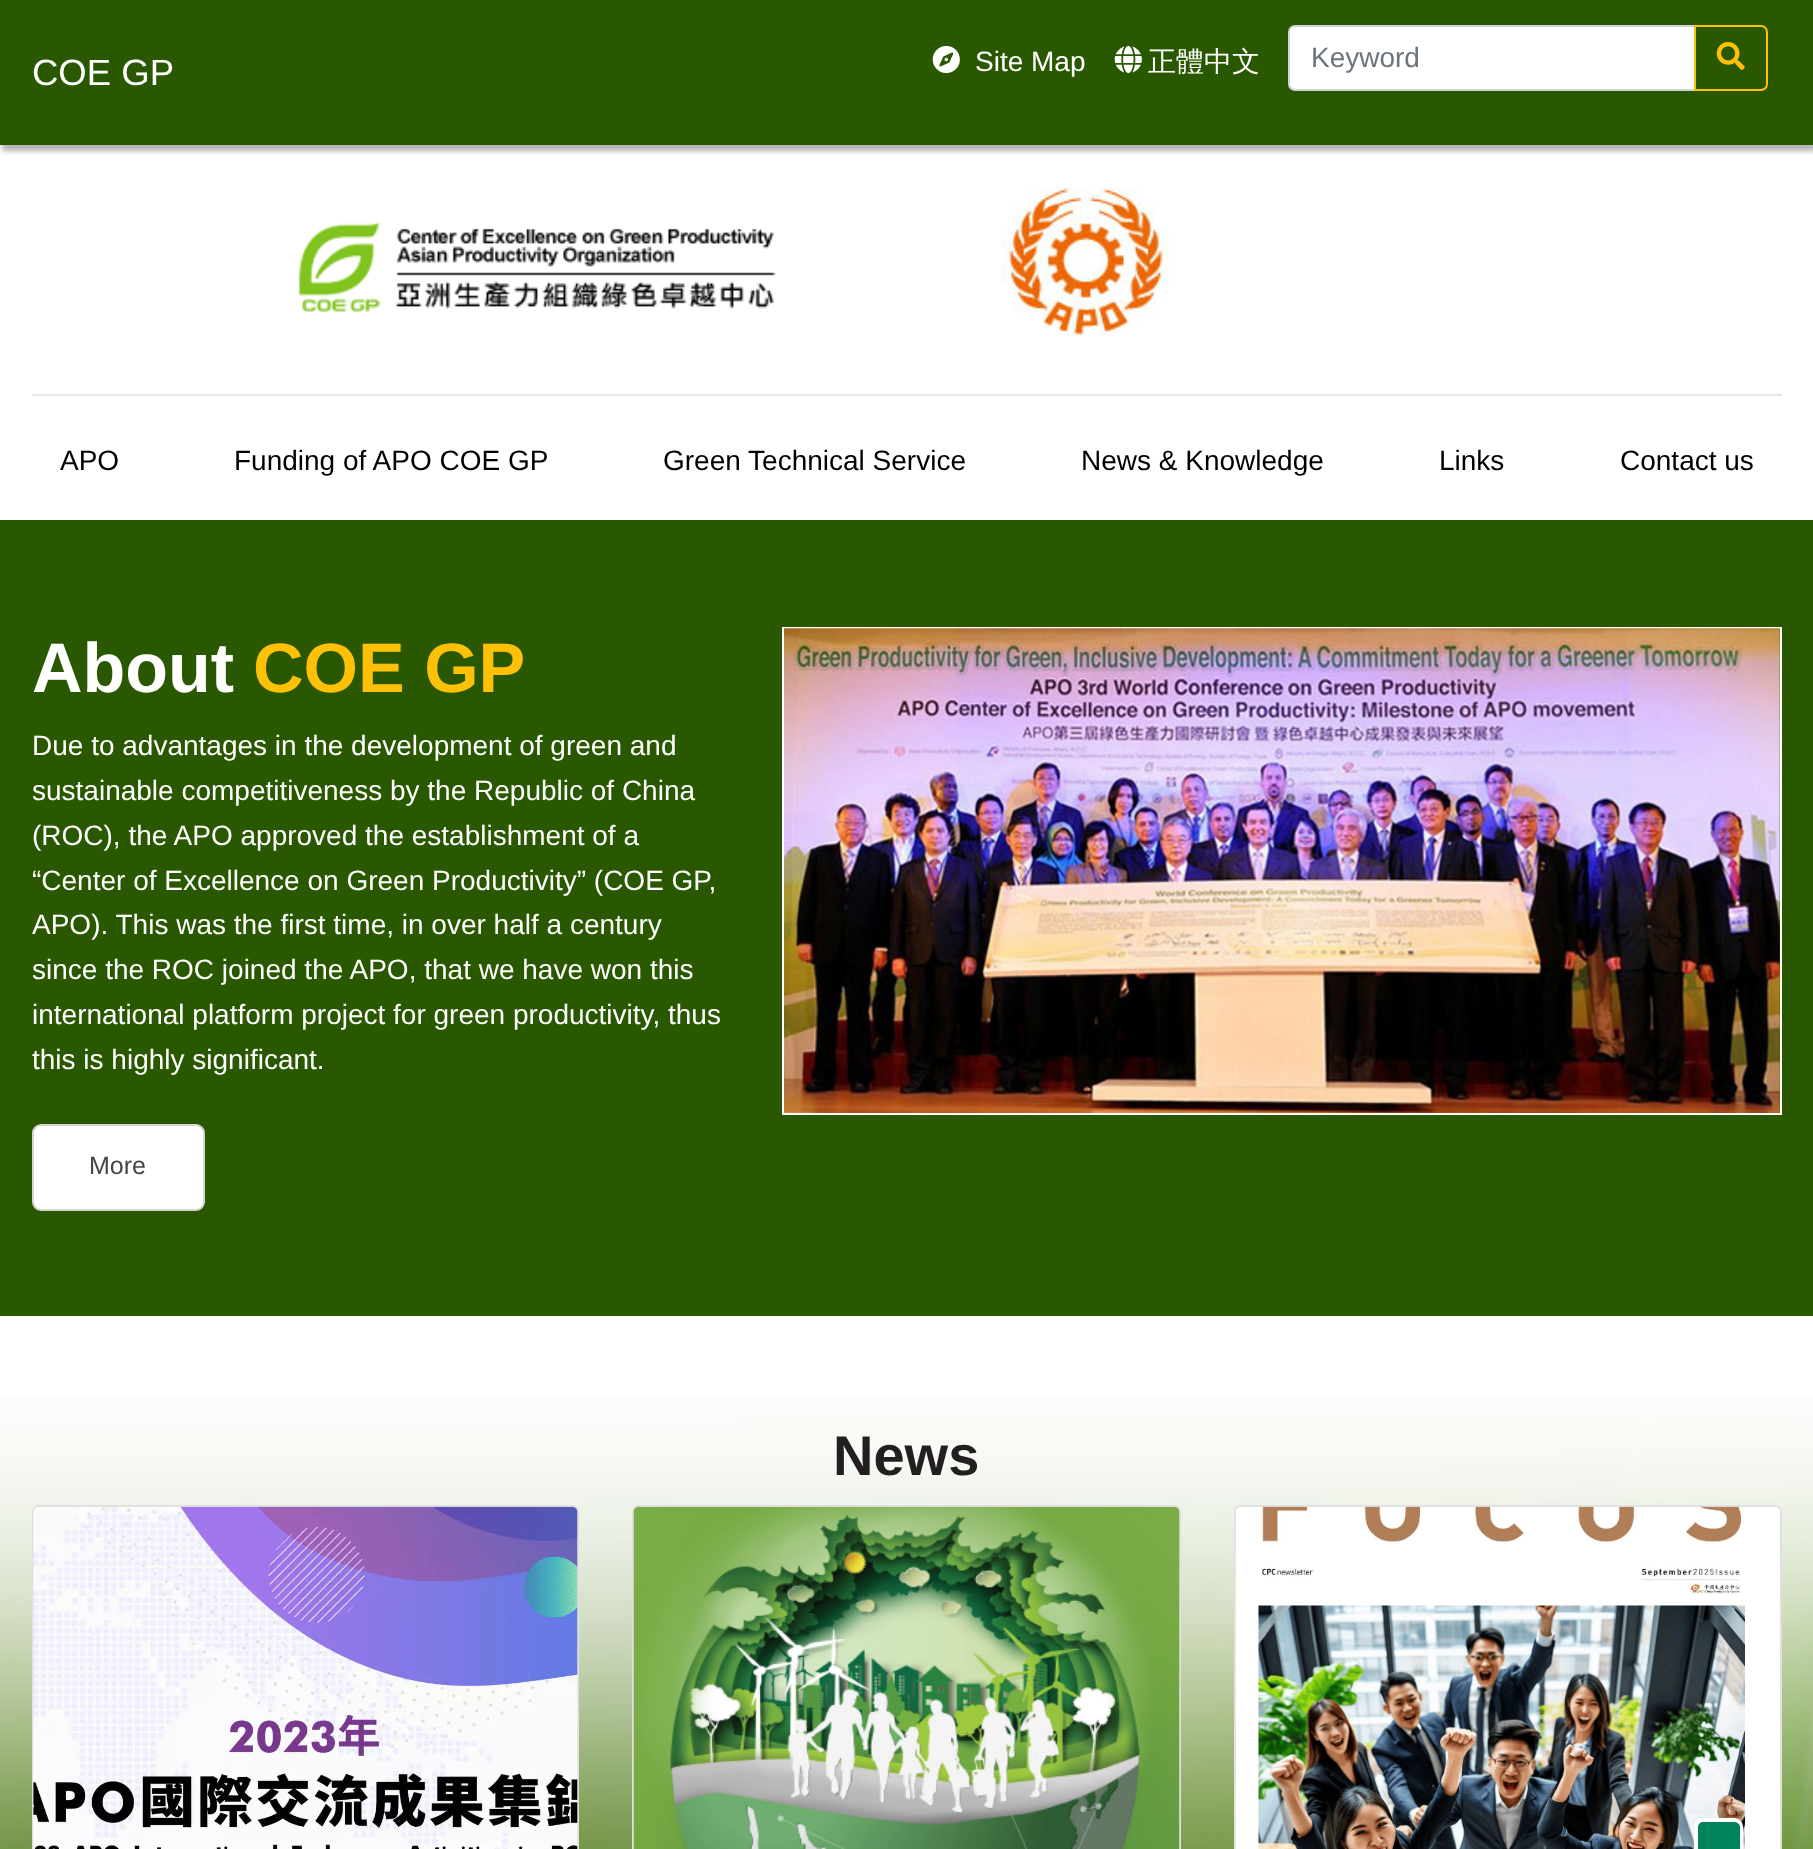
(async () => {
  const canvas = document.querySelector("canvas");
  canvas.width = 1813;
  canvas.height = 1849;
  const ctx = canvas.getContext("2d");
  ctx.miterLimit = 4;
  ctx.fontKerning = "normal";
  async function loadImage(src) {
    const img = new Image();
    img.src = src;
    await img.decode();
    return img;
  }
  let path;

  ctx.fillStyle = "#ffffff";
  ctx.fillRect(0, 0, 1813, 1849);
  ctx.fillStyle = "#b5b5b5";
  ctx.filter = "blur(2.5px)";
  ctx.beginPath();
  ctx.rect(2, 2, 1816, 149);
  ctx.fill();
  ctx.filter = "none";
  ctx.fillStyle = "#2a5800";
  ctx.fillRect(0, 0, 1813, 145);
  ctx.drawImage(await loadImage("img/1.png"), 932, 45, 28, 29);
  ctx.drawImage(await loadImage("img/2.png"), 1114, 46, 28, 27);
  ctx.fillStyle = "#ffffff";
  ctx.beginPath();
  ctx.roundRect(1289, 26, 406, 64, [6, 0, 0, 6]);
  ctx.fill();
  ctx.strokeStyle = "#ced4da";
  ctx.lineWidth = 2;
  ctx.stroke();
  ctx.beginPath();
  ctx.roundRect(1695, 26, 72, 64, [0, 6, 6, 0]);
  ctx.strokeStyle = "#ffc107";
  ctx.stroke();
  ctx.drawImage(await loadImage("img/3.png"), 1716, 42, 29, 28);
  ctx.drawImage(await loadImage("img/4.png"), 298, 222, 478, 90);
  ctx.drawImage(await loadImage("img/5.png"), 1001, 187, 168, 149);
  ctx.fillStyle = "#e6e6e6";
  ctx.fillRect(32, 394, 1750, 2);
  ctx.fillStyle = "#2a5800";
  ctx.fillRect(0, 520, 1813, 796);
  ctx.fillStyle = "#ffffff";
  ctx.beginPath();
  ctx.roundRect(33, 1125, 171, 85, 8);
  ctx.fill();
  ctx.strokeStyle = "#d5d5d5";
  ctx.stroke();
  ctx.strokeStyle = "#ffffff";
  ctx.strokeRect(783, 628, 998, 486);
  ctx.drawImage(await loadImage("img/6.png"), 784, 628, 996, 485);
  ctx.drawImage(await loadImage("img/7.png"), 0, 1394, 1813, 455);
  ctx.beginPath();
  ctx.roundRect(32, 1505, 547, 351, 7);
  ctx.fill();
  ctx.beginPath();
  ctx.roundRect(33, 1506, 545, 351, 6);
  ctx.strokeStyle = "rgba(0, 0, 0, 0.12)";
  ctx.stroke();
  ctx.drawImage(await loadImage("img/8.png"), 33, 1506, 545, 343);
  ctx.beginPath();
  ctx.roundRect(632, 1505, 549, 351, 7);
  ctx.fill();
  ctx.beginPath();
  ctx.roundRect(633, 1506, 547, 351, 6);
  ctx.stroke();
  ctx.drawImage(await loadImage("img/9.png"), 633, 1506, 547, 343);
  ctx.beginPath();
  ctx.roundRect(1234, 1505, 548, 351, 7);
  ctx.fill();
  ctx.beginPath();
  ctx.roundRect(1235, 1506, 546, 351, 6);
  ctx.stroke();
  ctx.drawImage(await loadImage("img/10.png"), 1235, 1506, 544, 343);
  ctx.fillStyle = "#00835b";
  path = new Path2D("M1703 1822H1735C1738 1822 1740 1824 1740 1827V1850H1698V1827C1698 1824 1700 1822 1703 1822Z");
  ctx.fill(path);
  ctx.fillStyle = "#ffffff";
  path = new Path2D("M1703 1818H1734C1739 1818 1743 1822 1743 1827V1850H1694V1827C1694 1822 1698 1818 1703 1818ZM1703 1822H1734C1737 1822 1740 1824 1740 1827V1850H1698V1827C1698 1824 1700 1822 1703 1822Z");
  ctx.fill(path, "evenodd");
  ctx.font = "36.5px Liberation Sans";
  ctx.fillText("COE GP", 32, 85);
  ctx.font = "28px Liberation Sans";
  ctx.fillText("Site Map", 975, 71);
  ctx.font = "500 28px WenQuanYi Zen Hei";
  ctx.fillText("正體中文", 1148, 71);
  ctx.font = "28px Liberation Sans";
  ctx.fillStyle = "#6c757d";
  ctx.fillText("Keyword", 1311, 67);
  ctx.fillStyle = "#000000";
  for (const [text, x, y] of [
    ["APO", 60, 470],
    ["Funding of APO COE GP", 234, 470],
    ["Green Technical Service", 663, 470],
    ["News & Knowledge", 1081, 470],
    ["Links", 1439, 470],
    ["Contact us", 1620, 470],
  ]) {
    ctx.fillText(text, x, y);
  }
  ctx.font = "bold 70px Liberation Sans";
  ctx.fillStyle = "#ffffff";
  ctx.fillText("About", 32, 692);
  ctx.fillStyle = "#ffc107";
  ctx.fillText("COE GP", 253, 692);
  ctx.font = "28px Liberation Sans";
  ctx.fillStyle = "#ffffff";
  for (const [text, x, y] of [
    ["Due to advantages in the development of green and", 32, 755],
    ["sustainable competitiveness by the Republic of China", 32, 800],
    ["(ROC), the APO approved the establishment of a", 32, 845],
    ["“Center of Excellence on Green Productivity” (COE GP,", 32, 890],
    ["APO). This was the first time, in over half a century", 32, 934],
    ["since the ROC joined the APO, that we have won this", 32, 979],
    ["international platform project for green productivity, thus", 32, 1024],
    ["this is highly significant.", 32, 1069],
  ]) {
    ctx.fillText(text, x, y);
  }
  ctx.font = "25px Liberation Sans";
  ctx.fillStyle = "#444444";
  ctx.fillText("More", 89, 1174);
  ctx.font = "bold 56px Liberation Sans";
  ctx.fillStyle = "#231f20";
  ctx.fillText("News", 833, 1475);
})();
